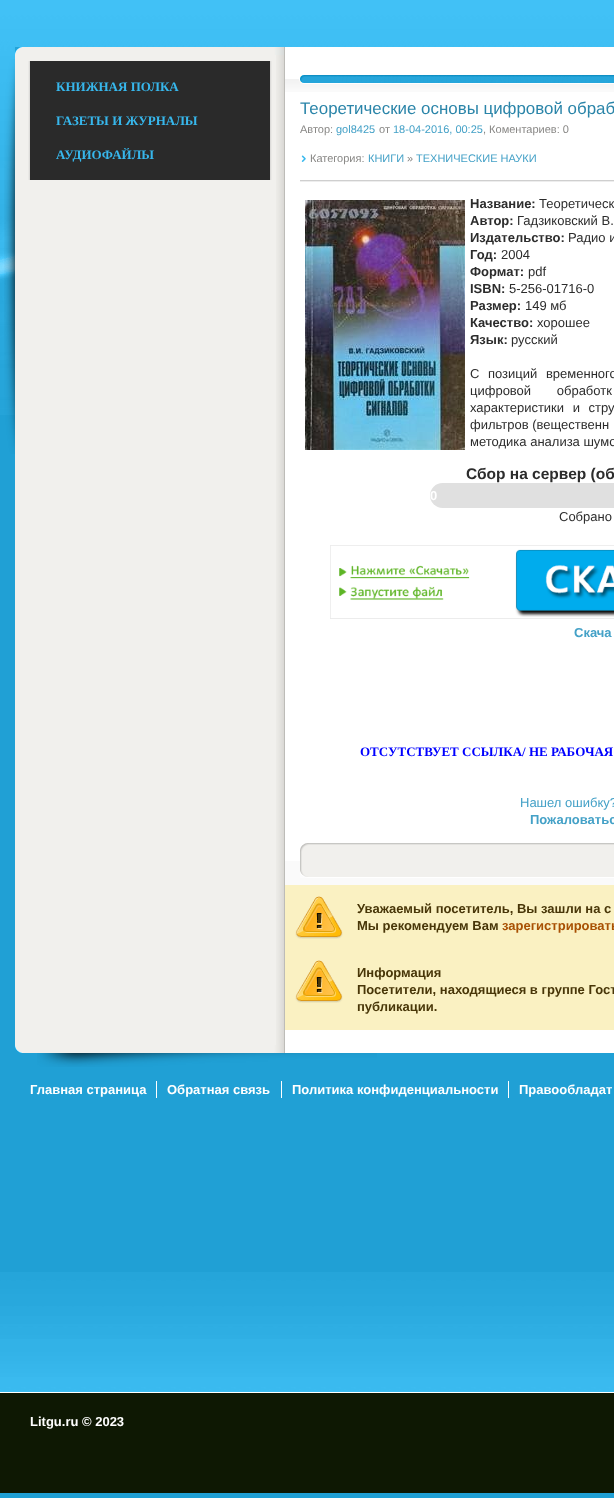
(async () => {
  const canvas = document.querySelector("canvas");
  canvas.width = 614;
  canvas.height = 1498;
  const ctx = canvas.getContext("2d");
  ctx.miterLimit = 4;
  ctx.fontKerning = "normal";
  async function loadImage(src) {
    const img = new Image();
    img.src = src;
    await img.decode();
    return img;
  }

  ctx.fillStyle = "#20a0d5";
  ctx.fillRect(0, 0, 614, 1498);
  ctx.drawImage(await loadImage("img/1.png"), 0, 0, 614, 161);
  ctx.drawImage(await loadImage("img/2.png"), 0, 161, 15, 254);
  ctx.drawImage(await loadImage("img/3.png"), 4, 59, 11, 395);
  ctx.drawImage(await loadImage("img/4.png"), 15, 47, 270, 8);
  ctx.fillStyle = "#f1f0ed";
  ctx.fillRect(15, 55, 261, 990);
  ctx.drawImage(await loadImage("img/5.png"), 276, 55, 9, 990);
  ctx.fillStyle = "#ffffff";
  ctx.fillRect(285, 47, 329, 1006);
  ctx.fillStyle = "#2a2a2a";
  ctx.fillRect(30, 61, 240, 119);
  ctx.drawImage(await loadImage("img/6.png"), 28, 61, 244, 119);
  ctx.drawImage(await loadImage("img/7.png"), 285, 75, 329, 17);
  ctx.fillStyle = "#fafafa";
  ctx.fillRect(285, 861, 329, 24);
  ctx.drawImage(await loadImage("img/8.png"), 301, 155, 5, 7);
  ctx.fillStyle = "#ededed";
  ctx.fillRect(300, 181, 314, 1);
  ctx.fillStyle = "#cfcfcf";
  ctx.fillRect(300, 180, 314, 1);
  ctx.drawImage(await loadImage("img/9.png"), 305, 200, 160, 250);
  ctx.fillStyle = "#e0e0e0";
  ctx.beginPath();
  ctx.roundRect(430, 483, 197, 25, 12.5);
  ctx.fill();
  ctx.drawImage(await loadImage("img/10.png"), 330, 545, 284, 74);
  ctx.drawImage(await loadImage("img/11.png"), 300, 843, 314, 35);
  ctx.fillStyle = "#faf1c2";
  ctx.fillRect(285, 885, 329, 145);
  ctx.drawImage(await loadImage("img/12.png"), 295, 896, 48, 43);
  ctx.drawImage(await loadImage("img/12.png"), 295, 960, 48, 43);
  ctx.drawImage(await loadImage("img/13.png"), 15, 1045, 270, 8);
  ctx.drawImage(await loadImage("img/14.png"), 0, 1272, 614, 120);
  ctx.drawImage(await loadImage("img/15.png"), 37, 1053, 340, 14);
  for (const [x, y, w, h, color] of [
    [156, 1081, 1, 17, "#ffffff"],
    [281, 1081, 1, 17, "#ffffff"],
    [508, 1081, 1, 17, "#ffffff"],
    [0, 1393, 614, 100, "#0e1803"],
    [0, 1392, 614, 1, "#ffffff"],
  ]) {
    ctx.fillStyle = color;
    ctx.fillRect(x, y, w, h);
  }
  ctx.font = "bold 13px Liberation Serif";
  ctx.fillStyle = "#37b7ec";
  for (const [text, x, y] of [
    ["КНИЖНАЯ ПОЛКА", 56, 91],
    ["ГАЗЕТЫ И ЖУРНАЛЫ", 56, 125],
    ["АУДИОФАЙЛЫ", 56, 159],
  ]) {
    ctx.fillText(text, x, y);
  }
  ctx.font = "16.9px Liberation Sans";
  ctx.fillStyle = "#2b85a9";
  ctx.fillText("Теоретические основы цифровой обраб", 300, 114);
  ctx.font = "11px Liberation Sans";
  ctx.fillStyle = "#888785";
  ctx.fillText("Автор:", 300, 133);
  ctx.fillStyle = "#44a1c7";
  ctx.fillText("gol8425", 336, 133);
  ctx.fillStyle = "#888785";
  ctx.fillText("от", 379, 133);
  ctx.fillStyle = "#44a1c7";
  ctx.fillText("18-04-2016, 00:25", 393, 133);
  ctx.fillStyle = "#888785";
  ctx.fillText(", Коментариев: 0", 483, 133);
  ctx.fillText("Категория:", 310, 162);
  ctx.fillStyle = "#44a1c7";
  ctx.fillText("КНИГИ", 368, 162);
  ctx.fillStyle = "#888785";
  ctx.fillText("»", 407, 162);
  ctx.fillStyle = "#44a1c7";
  ctx.fillText("ТЕХНИЧЕСКИЕ НАУКИ", 416, 162);
  ctx.font = "bold 13px Liberation Sans";
  ctx.fillStyle = "#2c2c2c";
  ctx.fillText("Название:", 470, 208);
  ctx.font = "13px Liberation Sans";
  ctx.fillText("Теоретическ", 539, 208);
  ctx.font = "bold 13px Liberation Sans";
  ctx.fillText("Автор:", 470, 225);
  ctx.font = "13px Liberation Sans";
  ctx.fillText("Гадзиковский В.", 517, 225);
  ctx.font = "bold 13px Liberation Sans";
  ctx.fillText("Издательство:", 470, 242);
  ctx.font = "13px Liberation Sans";
  ctx.fillText("Радио и", 568, 242);
  ctx.font = "bold 13px Liberation Sans";
  ctx.fillText("Год:", 470, 259);
  ctx.font = "13px Liberation Sans";
  ctx.fillText("2004", 501, 259);
  ctx.font = "bold 13px Liberation Sans";
  ctx.fillText("Формат:", 470, 276);
  ctx.font = "13px Liberation Sans";
  ctx.fillText("pdf", 528, 276);
  ctx.font = "bold 13px Liberation Sans";
  ctx.fillText("ISBN:", 470, 293);
  ctx.font = "13px Liberation Sans";
  ctx.fillText("5-256-01716-0", 509, 293);
  ctx.font = "bold 13px Liberation Sans";
  ctx.fillText("Размер:", 470, 310);
  ctx.font = "13px Liberation Sans";
  ctx.fillText("149 мб", 525, 310);
  ctx.font = "bold 13px Liberation Sans";
  ctx.fillText("Качество:", 470, 327);
  ctx.font = "13px Liberation Sans";
  ctx.fillText("хорошее", 537, 327);
  ctx.font = "bold 13px Liberation Sans";
  ctx.fillText("Язык:", 470, 344);
  ctx.font = "13px Liberation Sans";
  ctx.fillText("русский", 511, 344);
  ctx.wordSpacing = "5px";
  ctx.fillText("С позиций временного", 470, 378);
  ctx.wordSpacing = "22px";
  ctx.fillText("цифровой обработк", 470, 395);
  ctx.wordSpacing = "5px";
  ctx.fillText("характеристики и стру", 470, 412);
  ctx.wordSpacing = "0px";
  ctx.fillText("фильтров (вещественн", 470, 429);
  ctx.fillText("методика анализа шумо", 470, 446);
  ctx.font = "bold 15.5px Liberation Sans";
  ctx.fillText("Сбор на сервер (об", 466, 479);
  ctx.font = "bold 13px Liberation Sans";
  ctx.fillStyle = "#ffffff";
  ctx.fillText("0", 430, 500);
  ctx.font = "13px Liberation Sans";
  ctx.fillStyle = "#2c2c2c";
  ctx.fillText("Собрано", 559, 521);
  ctx.font = "bold 13px Liberation Sans";
  ctx.fillStyle = "#44a1c7";
  ctx.fillText("Скача", 574, 637);
  ctx.font = "bold 13px Liberation Serif";
  ctx.fillStyle = "#0000ff";
  ctx.fillText("ОТСУТСТВУЕТ ССЫЛКА/ НЕ РАБОЧАЯ", 360, 756);
  ctx.font = "13px Liberation Sans";
  ctx.fillStyle = "#44a1c7";
  ctx.fillText("Нашел ошибку?", 520, 807);
  ctx.font = "bold 13px Liberation Sans";
  ctx.fillText("Пожаловатьс", 530, 824);
  ctx.fillStyle = "#483608";
  ctx.fillText("Уважаемый посетитель, Вы зашли на с", 357, 913);
  ctx.fillText("Мы рекомендуем Вам", 357, 930);
  ctx.fillStyle = "#a85003";
  ctx.fillText("зарегистрировать", 502, 930);
  ctx.fillStyle = "#483608";
  for (const [text, x, y] of [
    ["Информация", 357, 977],
    ["Посетители, находящиеся в группе Гост", 357, 994],
    ["публикации.", 357, 1011],
  ]) {
    ctx.fillText(text, x, y);
  }
  ctx.fillStyle = "#ffffff";
  for (const [text, x, y] of [
    ["Главная страница", 30, 1094],
    ["Обратная связь", 167, 1094],
    ["Политика конфиденциальности", 292, 1094],
    ["Правообладат", 519, 1094],
    ["Litgu.ru © 2023", 30, 1426],
  ]) {
    ctx.fillText(text, x, y);
  }
})();
